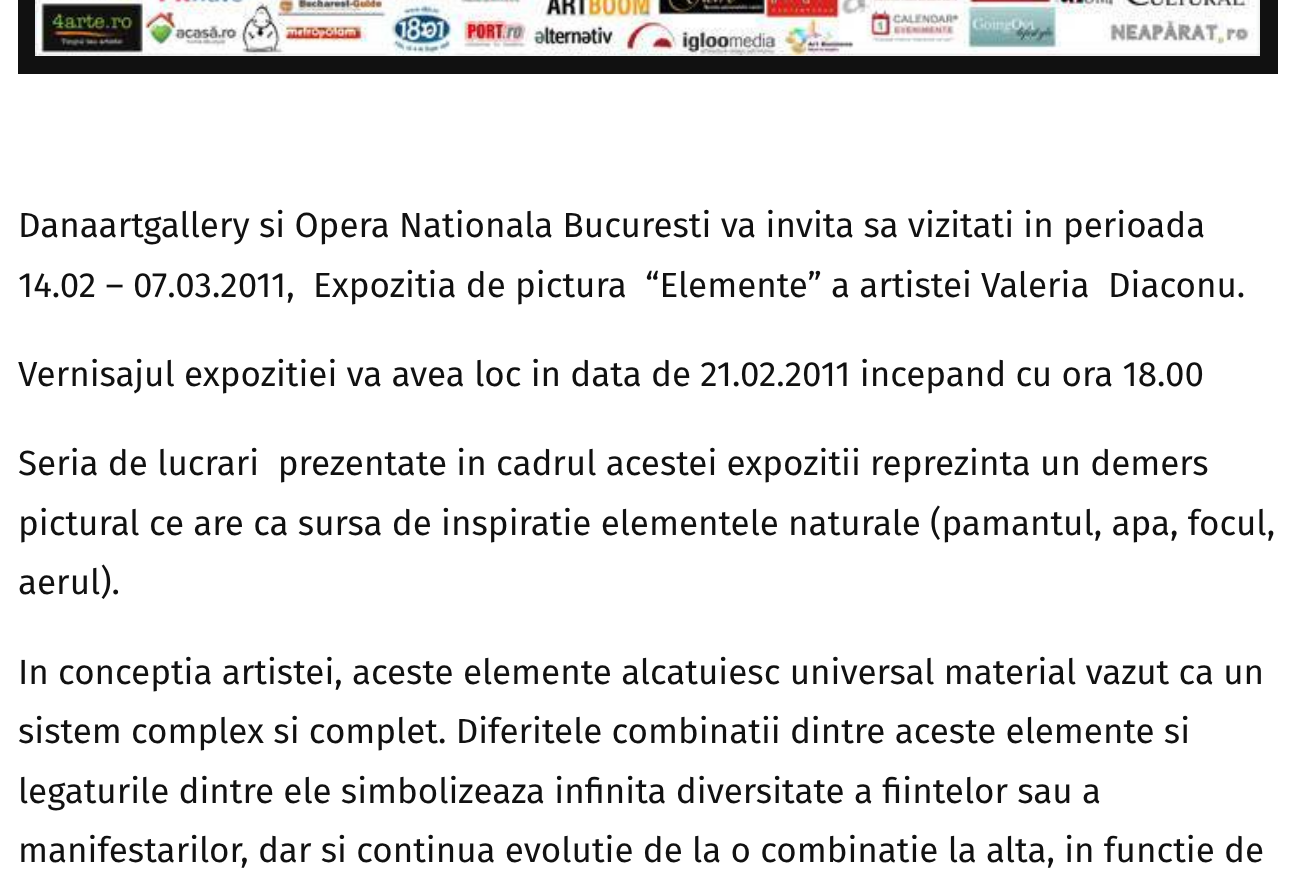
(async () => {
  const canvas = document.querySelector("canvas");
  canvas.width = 1294;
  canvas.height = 896;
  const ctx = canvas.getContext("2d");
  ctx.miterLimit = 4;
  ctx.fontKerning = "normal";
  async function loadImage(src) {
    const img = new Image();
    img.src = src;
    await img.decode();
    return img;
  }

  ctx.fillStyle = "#ffffff";
  ctx.fillRect(0, 0, 1294, 896);
  ctx.fillStyle = "#111111";
  ctx.fillRect(18, 0, 1260, 74);
  ctx.fillStyle = "#f5f5f5";
  ctx.fillRect(35, 55, 1225, 1);
  ctx.drawImage(await loadImage("img/1.png"), 35, 0, 1225, 56);
  ctx.font = "35px Fira Sans";
  ctx.fillStyle = "#111111";
  for (const [text, x, y] of [
    ["Danaartgallery si Opera Nationala Bucuresti va invita sa vizitati in perioada", 18, 237],
    ["14.02 – 07.03.2011,  Expozitia de pictura  “Elemente” a artistei Valeria  Diaconu.", 18, 297],
    ["Vernisajul expozitiei va avea loc in data de 21.02.2011 incepand cu ora 18.00", 18, 386],
    ["Seria de lucrari  prezentate in cadrul acestei expozitii reprezinta un demers", 18, 475],
    ["pictural ce are ca sursa de inspiratie elementele naturale (pamantul, apa, focul,", 18, 535],
    ["aerul).", 18, 594],
    ["In conceptia artistei, aceste elemente alcatuiesc universal material vazut ca un", 18, 684],
    ["sistem complex si complet. Diferitele combinatii dintre aceste elemente si", 18, 743],
    ["legaturile dintre ele simbolizeaza infinita diversitate a fiintelor sau a", 18, 803],
    ["manifestarilor, dar si continua evolutie de la o combinatie la alta, in functie de", 18, 862],
  ]) {
    ctx.fillText(text, x, y);
  }
})();
